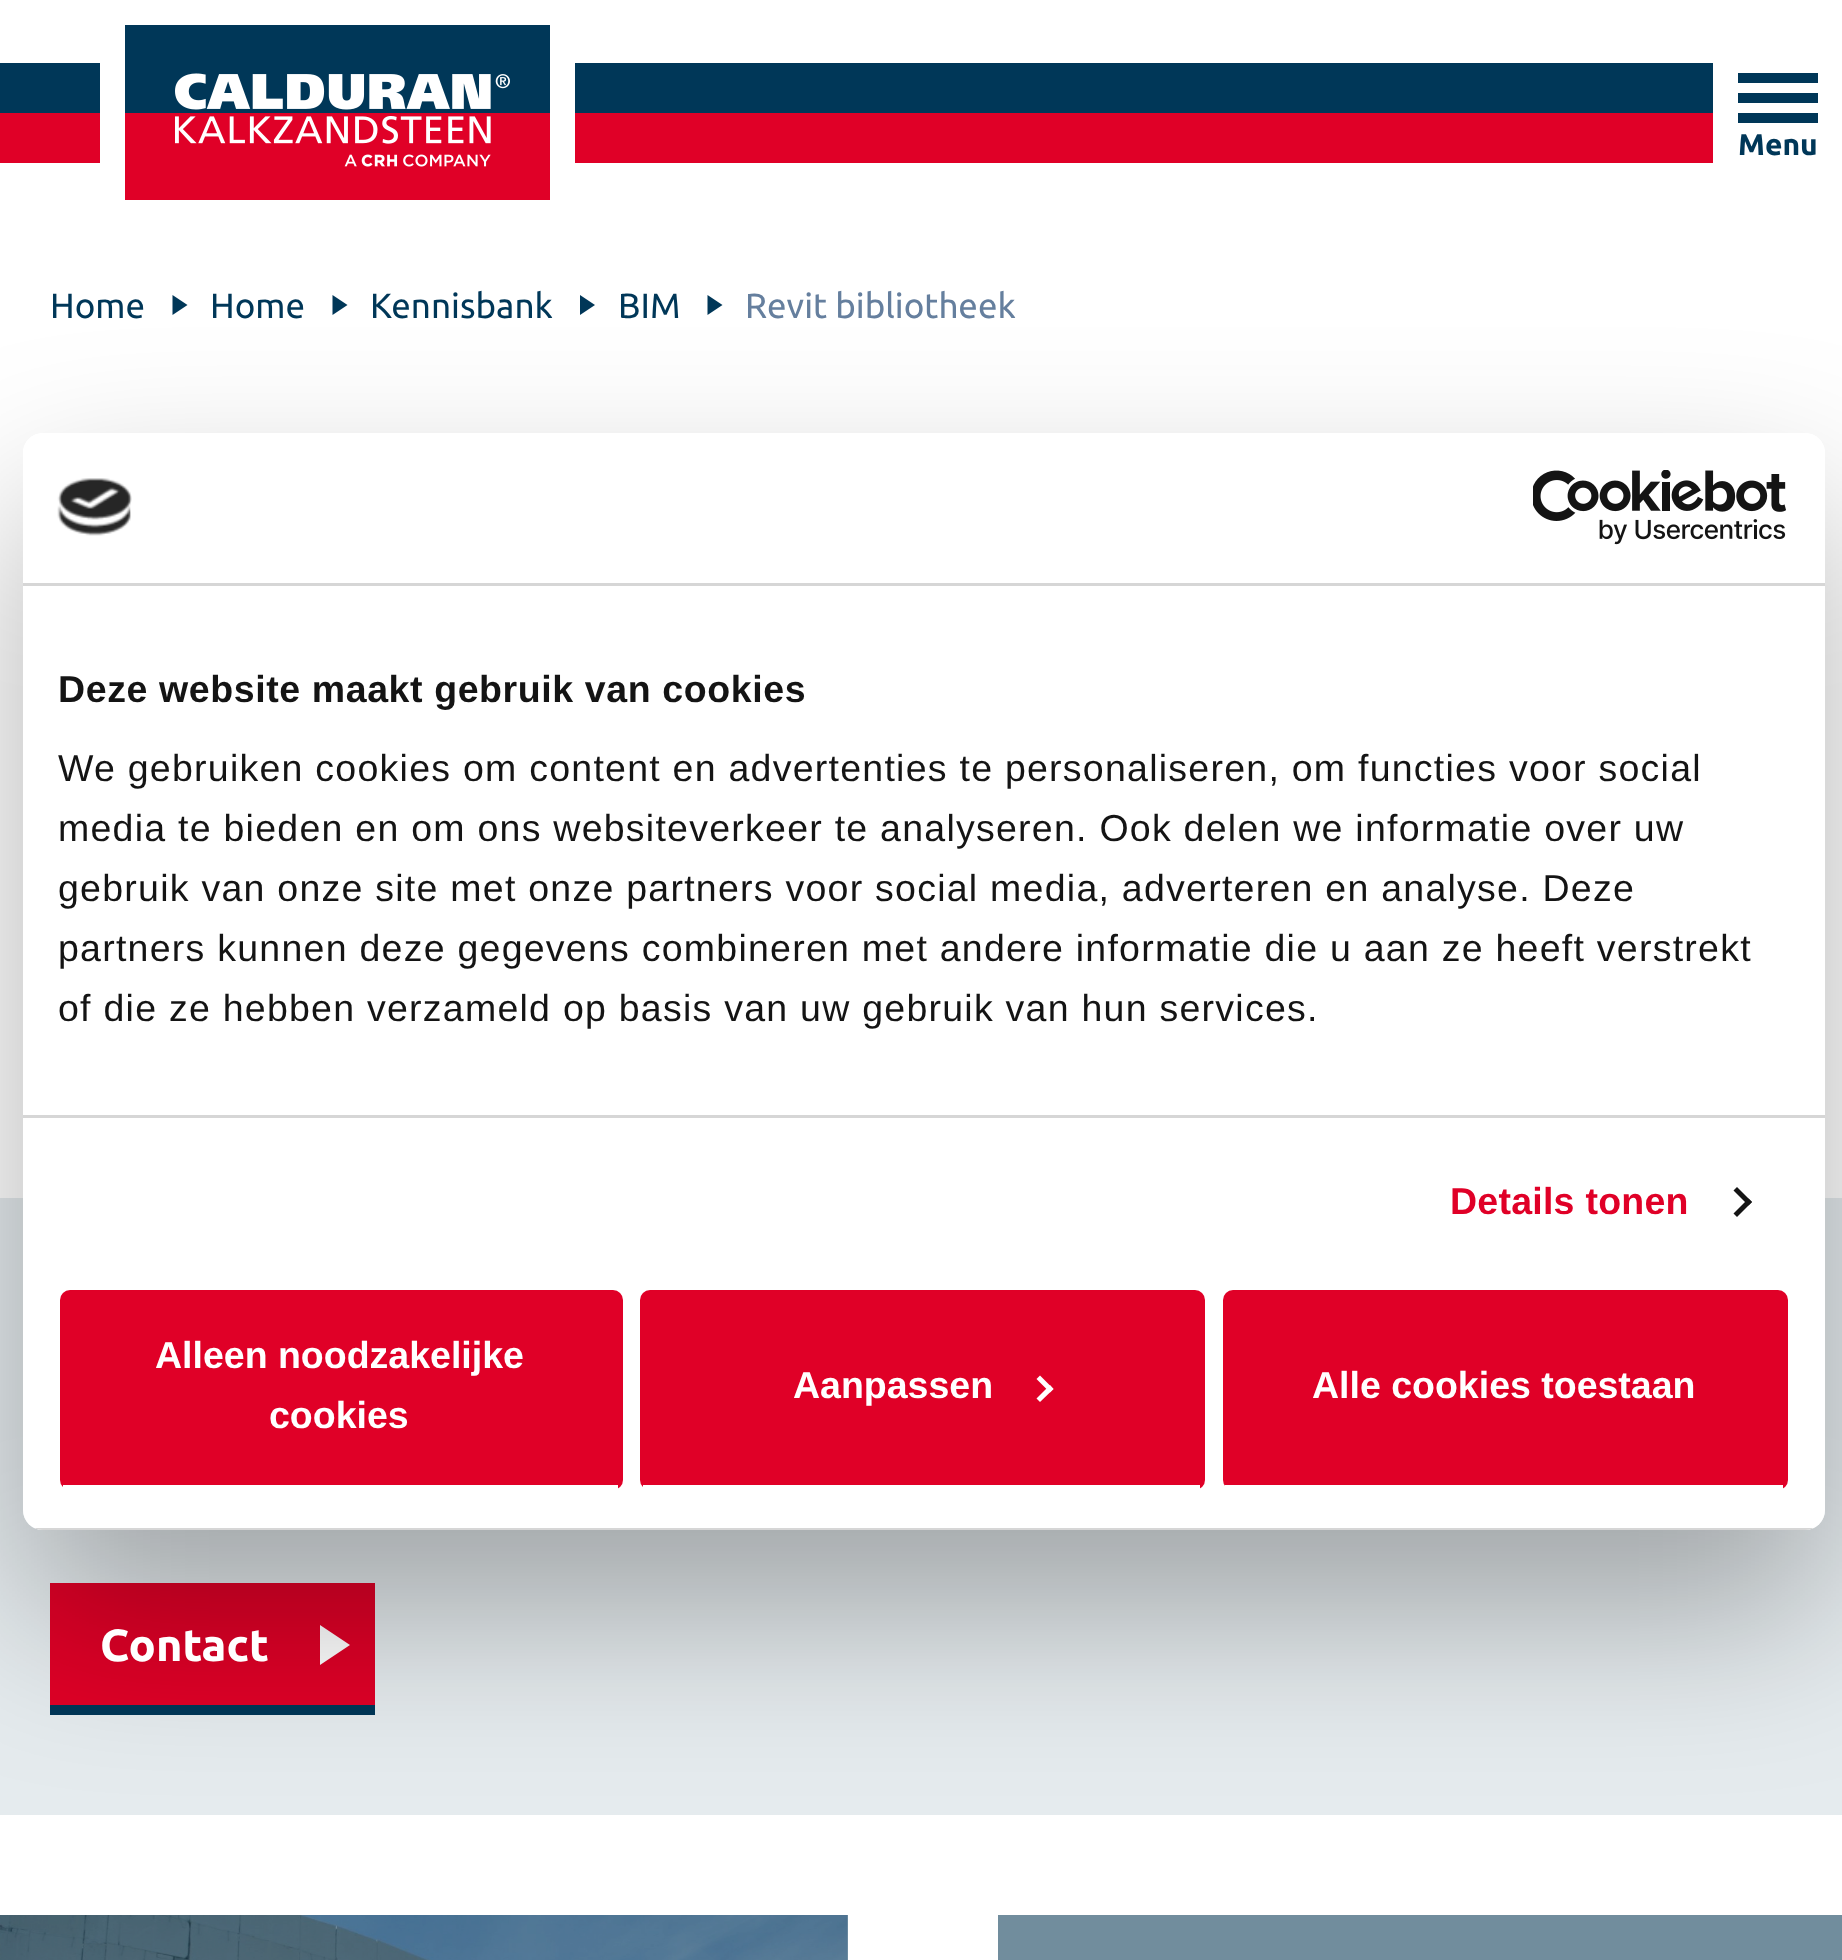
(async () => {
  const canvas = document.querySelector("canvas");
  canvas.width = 1842;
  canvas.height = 1960;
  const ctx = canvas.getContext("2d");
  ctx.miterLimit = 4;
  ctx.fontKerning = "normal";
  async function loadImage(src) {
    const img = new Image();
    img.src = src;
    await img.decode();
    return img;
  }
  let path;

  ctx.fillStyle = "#ffffff";
  ctx.fillRect(0, 0, 1842, 1960);
  for (const [x, y, w, h, color] of [
    [847, 1915, 1, 45, "#809bac"],
    [0, 63, 1713, 50, "#003758"],
    [0, 113, 1713, 50, "#e00027"],
    [125, 163, 425, 37, "#e00027"],
  ]) {
    ctx.fillStyle = color;
    ctx.fillRect(x, y, w, h);
  }
  ctx.strokeStyle = "#ffffff";
  ctx.lineWidth = 25;
  ctx.strokeRect(112.5, 12.5, 450, 200);
  ctx.fillStyle = "#003758";
  ctx.fillRect(125, 25, 425, 38);
  ctx.drawImage(await loadImage("img/1.png"), 175, 73, 335, 94);
  for (const [x, y, w, h, color] of [
    [1738, 73, 80, 10, "#003758"],
    [1738, 93, 80, 10, "#003758"],
    [1738, 113, 80, 10, "#003758"],
  ]) {
    ctx.fillStyle = color;
    ctx.fillRect(x, y, w, h);
  }
  path = new Path2D("M172.5 315V295L187.5 305Z");
  ctx.fill(path);
  path = new Path2D("M332.5 315V295L347.5 305Z");
  ctx.fill(path);
  path = new Path2D("M580 315V295L595 305Z");
  ctx.fill(path);
  path = new Path2D("M707.5 315V295L722.5 305Z");
  ctx.fill(path);
  for (const [x, y, w, h, color] of [
    [0, 1198, 1842, 617, "#e5ebee"],
    [50, 1583, 325, 122, "#e00027"],
    [50, 1705, 325, 10, "#003758"],
  ]) {
    ctx.fillStyle = color;
    ctx.fillRect(x, y, w, h);
  }
  ctx.fillStyle = "#ffffff";
  path = new Path2D("M320 1665V1625L350 1645Z");
  ctx.fill(path);
  ctx.drawImage(await loadImage("img/2.png"), 0, 1915, 848, 45);
  ctx.fillStyle = "#718d9d";
  ctx.fillRect(998, 1915, 844, 45);
  ctx.save();
  path = new Path2D("M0 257H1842V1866H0ZM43 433H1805C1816 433 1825 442 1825 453V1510C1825 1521 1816 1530 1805 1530H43C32 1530 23 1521 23 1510V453C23 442 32 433 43 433Z");
  ctx.clip(path, "evenodd");
  ctx.fillStyle = "rgba(0, 0, 0, 0.3)";
  ctx.filter = "blur(85px)";
  ctx.beginPath();
  ctx.roundRect(23, 513, 1802, 1097, 20);
  ctx.fill();
  ctx.filter = "none";
  ctx.restore();
  ctx.fillStyle = "#ffffff";
  ctx.beginPath();
  ctx.roundRect(23, 433, 1802, 1097, 20);
  ctx.fill();
  ctx.fillStyle = "#d6d6d6";
  ctx.fillRect(23, 583, 1802, 3);
  ctx.drawImage(await loadImage("img/3.png"), 57, 478, 75, 58);
  ctx.drawImage(await loadImage("img/4.png"), 1533, 470, 253, 75);
  ctx.fillRect(23, 1115, 1802, 3);
  ctx.fillStyle = "#141414";
  path = new Path2D("M1737 1187L1752 1202L1748.5 1205.5L1733.5 1190.5Z");
  ctx.fill(path);
  path = new Path2D("M1748.5 1198.5L1752 1202L1737 1217L1733.5 1213.5Z");
  ctx.fill(path);
  ctx.save();
  ctx.beginPath();
  ctx.roundRect(23, 433, 1802, 1097, 20);
  ctx.clip();
  ctx.fillStyle = "#d6d6d6";
  ctx.fillRect(34, 1528, 1780, 2);
  ctx.restore();
  ctx.fillStyle = "#e00027";
  ctx.beginPath();
  ctx.roundRect(60, 1290, 563, 200, 10);
  ctx.fill();
  ctx.fillStyle = "#ffffff";
  ctx.fillRect(63, 1485, 555, 5);
  ctx.fillStyle = "#e00027";
  ctx.beginPath();
  ctx.roundRect(640, 1290, 565, 200, 10);
  ctx.fill();
  ctx.fillStyle = "#ffffff";
  ctx.fillRect(643, 1485, 557, 5);
  path = new Path2D("M1040 1375.5L1053.5 1389L1050 1392.5L1036.5 1379Z");
  ctx.fill(path);
  path = new Path2D("M1050 1385L1053.5 1389L1040 1402L1036.5 1398.5Z");
  ctx.fill(path);
  ctx.fillStyle = "#e00027";
  ctx.beginPath();
  ctx.roundRect(1223, 1290, 565, 200, 10);
  ctx.fill();
  ctx.fillStyle = "#ffffff";
  ctx.fillRect(1225, 1485, 558, 5);
  ctx.font = "bold 30px Ubuntu";
  ctx.fillStyle = "#003758";
  ctx.fillText("Menu", 1738, 155);
  ctx.font = "35px Ubuntu";
  for (const [text, x, y] of [
    ["Home", 50, 318],
    ["Home", 210, 318],
    ["Kennisbank", 370, 318],
    ["BIM", 618, 318],
  ]) {
    ctx.fillText(text, x, y);
  }
  ctx.fillStyle = "#657f9e";
  ctx.fillText("Revit bibliotheek", 745, 318);
  ctx.font = "bold 45px Ubuntu";
  ctx.fillStyle = "#ffffff";
  ctx.fillText("Contact", 100, 1661);
  ctx.letterSpacing = "0.6px";
  ctx.font = "bold 37.5px Liberation Sans";
  ctx.fillStyle = "#141414";
  ctx.fillText("Deze website maakt gebruik van cookies", 58, 702);
  ctx.letterSpacing = "1.25px";
  ctx.font = "37.5px Liberation Sans";
  for (const [text, x, y] of [
    ["We gebruiken cookies om content en advertenties te personaliseren, om functies voor social", 58, 781],
    ["media te bieden en om ons websiteverkeer te analyseren. Ook delen we informatie over uw", 58, 841],
    ["gebruik van onze site met onze partners voor social media, adverteren en analyse. Deze", 58, 901],
    ["partners kunnen deze gegevens combineren met andere informatie die u aan ze heeft verstrekt", 58, 961],
    ["of die ze hebben verzameld op basis van uw gebruik van hun services.", 58, 1021],
  ]) {
    ctx.fillText(text, x, y);
  }
  ctx.letterSpacing = "0.25px";
  ctx.font = "bold 37.5px Liberation Sans";
  ctx.fillStyle = "#e00027";
  ctx.fillText("Details tonen", 1450, 1214);
  ctx.letterSpacing = "0px";
  ctx.fillStyle = "#ffffff";
  for (const [text, x, y] of [
    ["Alleen noodzakelijke", 155, 1368],
    ["cookies", 269, 1428],
    ["Aanpassen", 793, 1398],
    ["Alle cookies toestaan", 1312, 1398],
  ]) {
    ctx.fillText(text, x, y);
  }
})();
